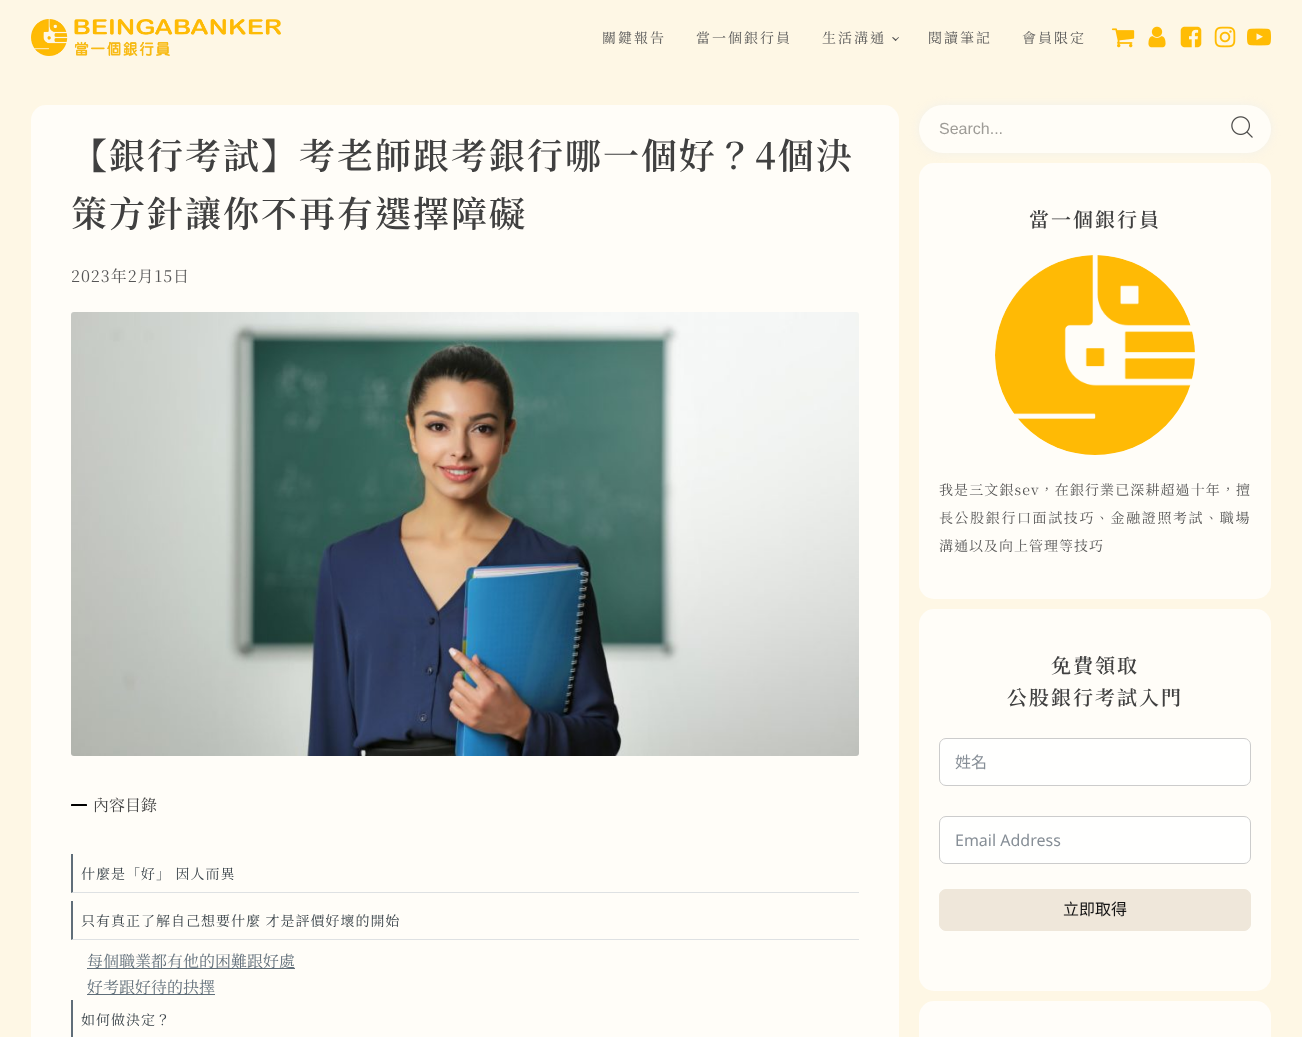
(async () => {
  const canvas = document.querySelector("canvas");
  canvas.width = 1302;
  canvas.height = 1037;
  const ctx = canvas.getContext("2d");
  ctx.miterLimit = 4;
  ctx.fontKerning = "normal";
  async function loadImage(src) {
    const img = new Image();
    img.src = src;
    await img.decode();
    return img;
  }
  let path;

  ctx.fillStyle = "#fef7e5";
  ctx.fillRect(0, 0, 1302, 1037);
  ctx.drawImage(await loadImage("img/1.png"), 31, 19, 250, 37);
  ctx.fillStyle = "#565656";
  path = new Path2D("M899 37.5L895.5 41L895 40L898.5 37Z");
  ctx.fill(path);
  path = new Path2D("M896.5 40L895.5 41L892 37.5L893 37Z");
  ctx.fill(path);
  ctx.drawImage(await loadImage("img/2.png"), 1111, 28, 24, 20);
  ctx.drawImage(await loadImage("img/3.png"), 1148, 26, 18, 22);
  ctx.drawImage(await loadImage("img/4.png"), 1180, 26, 22, 22);
  ctx.drawImage(await loadImage("img/5.png"), 1214, 26, 22, 22);
  ctx.drawImage(await loadImage("img/6.png"), 1247, 28, 24, 18);
  ctx.fillStyle = "#fffdf8";
  ctx.beginPath();
  ctx.roundRect(31, 105, 868, 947, 15);
  ctx.fill();
  ctx.drawImage(await loadImage("img/7.png"), 71, 312, 788, 444);
  ctx.fillStyle = "#000000";
  ctx.beginPath();
  ctx.roundRect(71, 804, 16, 2, 0.5);
  ctx.fill();
  ctx.fillStyle = "#dee1e3";
  path = new Path2D("M859 893H71L73 892H859Z");
  ctx.fill(path);
  ctx.fillStyle = "#606e79";
  path = new Path2D("M71 893V854H73V892Z");
  ctx.fill(path);
  ctx.fillStyle = "#dee1e3";
  path = new Path2D("M859 940H71L73 939H859Z");
  ctx.fill(path);
  ctx.fillStyle = "#606e79";
  path = new Path2D("M71 940V901H73V939Z");
  ctx.fill(path);
  ctx.fillRect(87, 968, 208, 1);
  ctx.fillRect(87, 994, 128, 1);
  path = new Path2D("M71 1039V1000H73V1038Z");
  ctx.fill(path);
  ctx.fillStyle = "#fffdf8";
  ctx.beginPath();
  ctx.roundRect(919, 163, 352, 436, 15);
  ctx.fill();
  ctx.fillStyle = "#f3f1eb";
  ctx.filter = "blur(5px)";
  ctx.beginPath();
  ctx.roundRect(919, 105, 352, 48, 24);
  ctx.fill();
  ctx.filter = "none";
  ctx.fillStyle = "#fffdf7";
  ctx.beginPath();
  ctx.roundRect(919, 105, 352, 48, 24);
  ctx.fill();
  ctx.drawImage(await loadImage("img/8.png"), 1231, 116, 22, 22);
  ctx.drawImage(await loadImage("img/9.png"), 995, 255, 200, 200);
  ctx.fillStyle = "#fffdf8";
  ctx.beginPath();
  ctx.roundRect(919, 609, 352, 382, 15);
  ctx.fill();
  ctx.fillStyle = "#fffffe";
  ctx.beginPath();
  ctx.roundRect(939.5, 738.5, 311, 47, 6.5);
  ctx.fill();
  ctx.strokeStyle = "#cccccc";
  ctx.stroke();
  ctx.beginPath();
  ctx.roundRect(939.5, 816.5, 311, 47, 6.5);
  ctx.fill();
  ctx.stroke();
  ctx.fillStyle = "#efe7da";
  ctx.beginPath();
  ctx.roundRect(939.5, 889.5, 311, 41, 6.5);
  ctx.fill();
  ctx.strokeStyle = "#efe7da";
  ctx.stroke();
  ctx.fillStyle = "#fffdf9";
  ctx.beginPath();
  ctx.roundRect(919, 1001, 352, 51, 15);
  ctx.fill();
  ctx.letterSpacing = "2px";
  ctx.font = "14px Noto Serif TC";
  ctx.fillStyle = "#565656";
  for (const [text, x, y] of [
    ["關鍵報告", 602, 43],
    ["當一個銀行員", 696, 43],
    ["生活溝通", 822, 43],
    ["閱讀筆記", 928, 43],
    ["會員限定", 1022, 43],
  ]) {
    ctx.fillText(text, x, y);
  }
  ctx.font = "600 36px Noto Serif TC";
  ctx.fillStyle = "#404040";
  ctx.fillText("【銀行考試】考老師跟考銀行哪一個好？4個決", 71, 169);
  ctx.fillText("策方針讓你不再有選擇障礙", 71, 227);
  ctx.letterSpacing = "1px";
  ctx.font = "16px Noto Serif TC";
  ctx.fillStyle = "#565656";
  ctx.fillText("2023年2月15日", 71, 282);
  ctx.letterSpacing = "0px";
  ctx.fillStyle = "#404040";
  ctx.fillText("內容目錄", 93, 811);
  ctx.letterSpacing = "1px";
  ctx.font = "14px Noto Serif TC";
  ctx.fillStyle = "#374047";
  ctx.fillText("什麼是「好」 因人而異", 81, 879);
  ctx.fillText("只有真正了解自己想要什麼 才是評價好壞的開始", 81, 926);
  ctx.letterSpacing = "0px";
  ctx.font = "16px Noto Serif TC";
  ctx.fillStyle = "#606e79";
  ctx.fillText("每個職業都有他的困難跟好處", 87, 967);
  ctx.fillText("好考跟好待的抉擇", 87, 993);
  ctx.letterSpacing = "1px";
  ctx.font = "14px Noto Serif TC";
  ctx.fillStyle = "#374047";
  ctx.fillText("如何做決定？", 81, 1025);
  ctx.letterSpacing = "0px";
  ctx.font = "16px Liberation Sans";
  ctx.fillStyle = "#9e9c97";
  ctx.fillText("Search...", 939, 134);
  ctx.letterSpacing = "2px";
  ctx.font = "600 20px Noto Serif TC";
  ctx.fillStyle = "#404040";
  ctx.fillText("當一個銀行員", 1029, 227);
  ctx.letterSpacing = "1.1px";
  ctx.font = "14px Noto Serif TC";
  ctx.fillStyle = "#565656";
  ctx.fillText("我是三文銀sev，在銀行業已深耕超過十年，擅", 939, 495);
  ctx.letterSpacing = "1.6px";
  ctx.fillText("長公股銀行口面試技巧、金融證照考試、職場", 939, 523);
  ctx.letterSpacing = "1px";
  ctx.fillText("溝通以及向上管理等技巧", 939, 551);
  ctx.letterSpacing = "2px";
  ctx.font = "600 20px Noto Serif TC";
  ctx.fillStyle = "#404040";
  ctx.fillText("免費領取", 1051, 673);
  ctx.fillText("公股銀行考試入門", 1007, 705);
  ctx.letterSpacing = "0px";
  ctx.font = "16px Noto Sans CJK TC";
  ctx.fillStyle = "#868e96";
  ctx.fillText("姓名", 955, 768);
  ctx.font = "16px Noto Sans";
  ctx.fillText("Email Address", 955, 846);
  ctx.font = "16px Noto Sans CJK TC";
  ctx.fillStyle = "#151515";
  ctx.fillText("立即取得", 1063, 915);
})();
